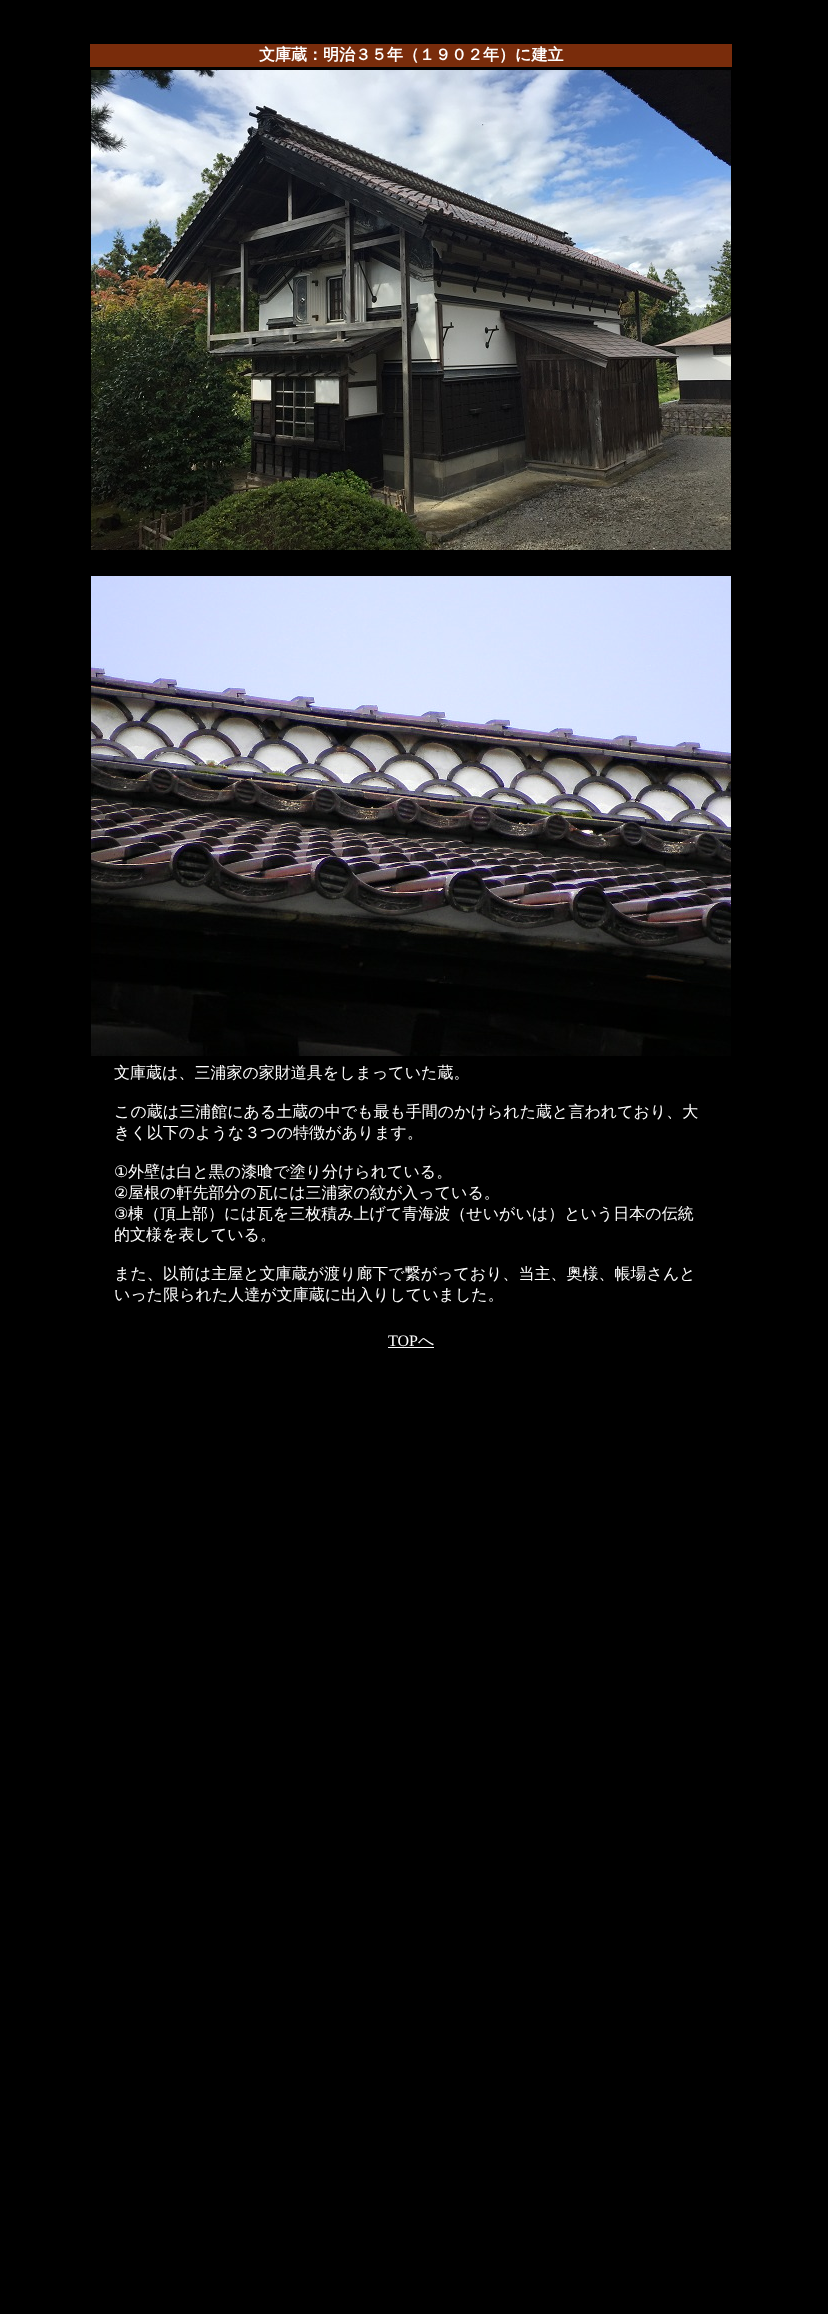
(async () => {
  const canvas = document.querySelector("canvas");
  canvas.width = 828;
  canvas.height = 2314;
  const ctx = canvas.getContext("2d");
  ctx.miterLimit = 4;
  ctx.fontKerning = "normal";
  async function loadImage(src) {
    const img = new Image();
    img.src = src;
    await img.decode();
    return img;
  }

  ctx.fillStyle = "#000000";
  ctx.fillRect(0, 0, 828, 2314);
  ctx.fillStyle = "#792c0b";
  ctx.fillRect(90, 44, 642, 23);
  ctx.drawImage(await loadImage("img/1.png"), 91, 70, 640, 480);
  ctx.drawImage(await loadImage("img/2.png"), 91, 576, 640, 480);
  ctx.fillStyle = "#ffffff";
  ctx.fillRect(388, 1347, 46, 1);
  ctx.font = "bold 16px WenQuanYi Zen Hei";
  ctx.fillText("文庫蔵：明治３５年（１９０２年）に建立", 259, 60);
  ctx.font = "500 16px WenQuanYi Zen Hei";
  for (const [text, x, y] of [
    ["文庫蔵は、三浦家の家財道具をしまっていた蔵。", 114, 1078],
    ["この蔵は三浦館にある土蔵の中でも最も手間のかけられた蔵と言われており、大", 114, 1117],
    ["きく以下のような３つの特徴があります。", 114, 1138],
  ]) {
    ctx.fillText(text, x, y);
  }
  ctx.font = "16px DejaVu Sans";
  ctx.fillText("①", 114, 1177);
  ctx.font = "500 16px WenQuanYi Zen Hei";
  ctx.fillText("外壁は白と黒の漆喰で塗り分けられている。", 128, 1177);
  ctx.font = "16px DejaVu Sans";
  ctx.fillText("②", 114, 1198);
  ctx.font = "500 16px WenQuanYi Zen Hei";
  ctx.fillText("屋根の軒先部分の瓦には三浦家の紋が入っている。", 128, 1198);
  ctx.font = "16px DejaVu Sans";
  ctx.fillText("③", 114, 1219);
  ctx.font = "500 16px WenQuanYi Zen Hei";
  for (const [text, x, y] of [
    ["棟（頂上部）には瓦を三枚積み上げて青海波（せいがいは）という日本の伝統", 128, 1219],
    ["的文様を表している。", 114, 1240],
    ["また、以前は主屋と文庫蔵が渡り廊下で繋がっており、当主、奥様、帳場さんと", 114, 1279],
    ["いった限られた人達が文庫蔵に出入りしていました。", 114, 1300],
  ]) {
    ctx.fillText(text, x, y);
  }
  ctx.font = "16px Liberation Serif";
  ctx.fillText("TOP", 388, 1346);
  ctx.font = "500 16px WenQuanYi Zen Hei";
  ctx.fillText("へ", 418, 1346);
})();
